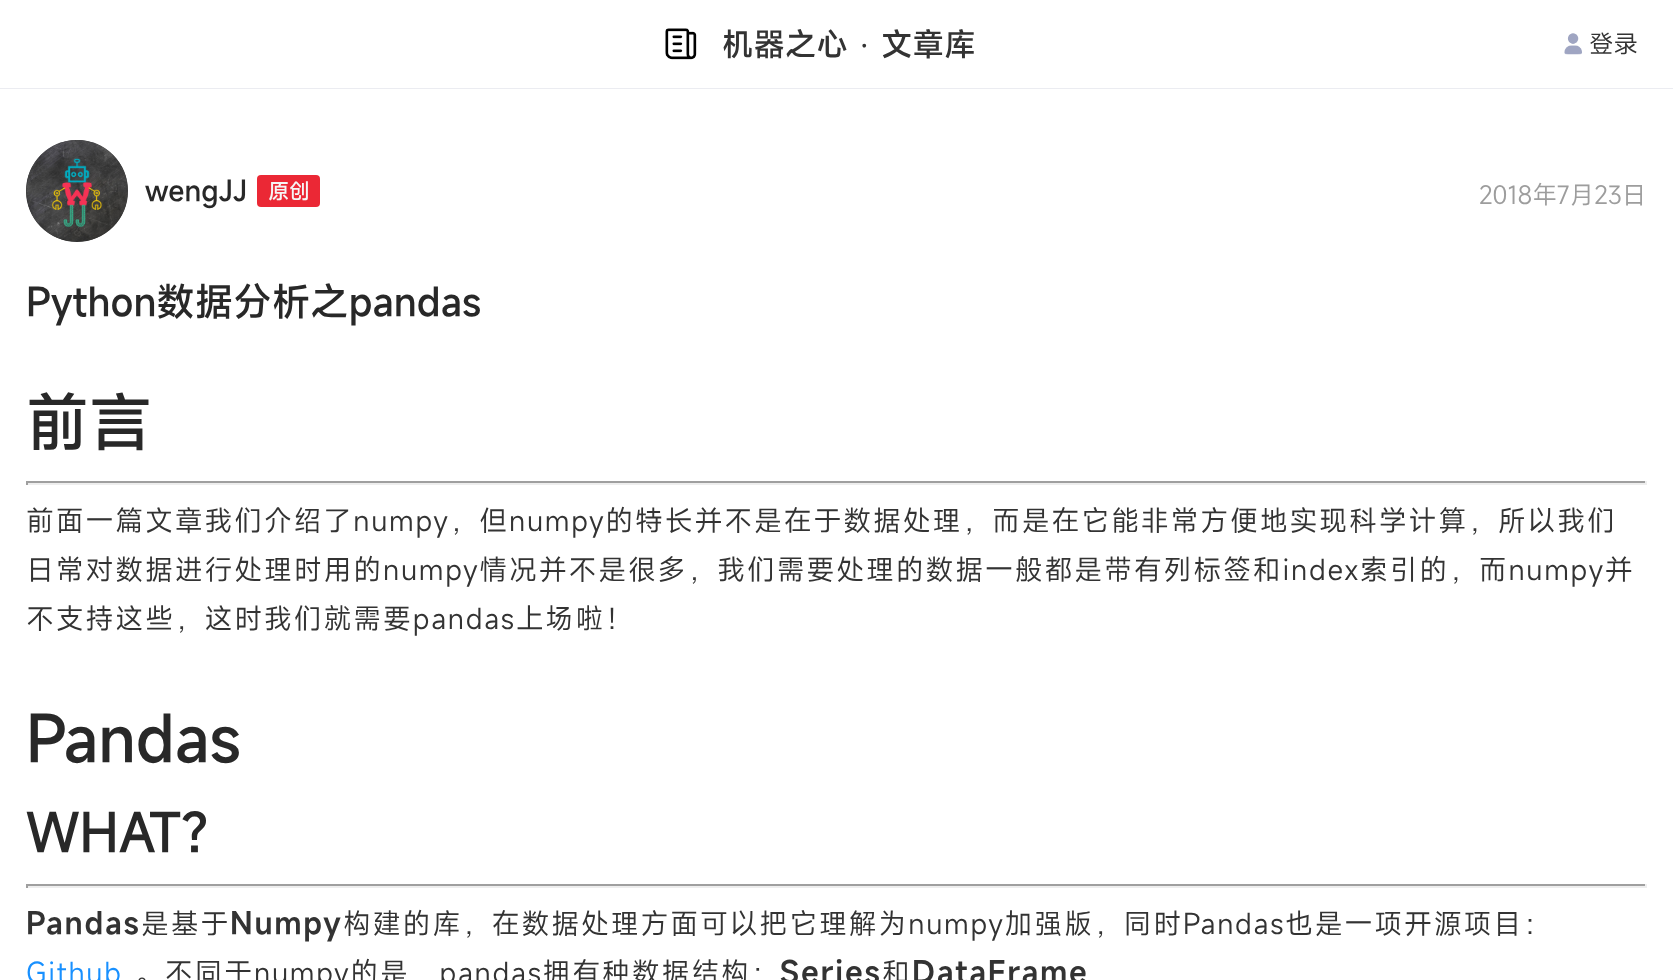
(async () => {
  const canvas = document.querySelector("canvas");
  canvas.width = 1673;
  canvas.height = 980;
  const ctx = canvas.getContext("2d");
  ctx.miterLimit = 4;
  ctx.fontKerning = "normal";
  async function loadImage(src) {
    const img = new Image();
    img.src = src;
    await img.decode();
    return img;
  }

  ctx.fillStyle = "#ffffff";
  ctx.fillRect(0, 0, 1673, 980);
  ctx.fillStyle = "#ebecf1";
  ctx.fillRect(0, 88, 1673, 1);
  ctx.drawImage(await loadImage("img/1.png"), 665, 28, 32, 32);
  ctx.drawImage(await loadImage("img/2.png"), 1564, 33, 18, 22);
  ctx.fillStyle = "#333333";
  ctx.beginPath();
  ctx.arc(77, 191, 51, 0, Math.PI * 2);
  ctx.fill();
  ctx.drawImage(await loadImage("img/3.png"), 26, 140, 102, 102);
  ctx.fillStyle = "#eb2835";
  ctx.beginPath();
  ctx.roundRect(257, 175, 63, 32, 4);
  ctx.fill();
  for (const [x, y, w, h, color] of [
    [26, 481, 1621, 2, "#9f9f9f"],
    [1645, 481, 2, 4, "#eeeeee"],
    [26, 483, 1621, 2, "#eeeeee"],
    [26, 481, 2, 4, "#9f9f9f"],
    [26, 884, 1621, 2, "#9f9f9f"],
    [1645, 884, 2, 4, "#eeeeee"],
    [26, 886, 1621, 2, "#eeeeee"],
    [26, 884, 2, 4, "#9f9f9f"],
  ]) {
    ctx.fillStyle = color;
    ctx.fillRect(x, y, w, h);
  }
  ctx.font = "500 31.5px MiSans";
  ctx.fillStyle = "#333333";
  ctx.fillText("机器之心", 722, 56);
  ctx.font = "31.5px Liberation Serif";
  ctx.fillText("·", 859, 56);
  ctx.font = "500 31.5px MiSans";
  ctx.fillText("文章库", 881, 56);
  ctx.font = "24.5px MiSans";
  ctx.fillText("登录", 1589, 53);
  ctx.font = "500 28px MiSans";
  ctx.fillStyle = "#282828";
  ctx.fillText("wengJJ", 145, 201);
  ctx.font = "500 21px MiSans";
  ctx.fillStyle = "#f6f6f6";
  ctx.fillText("原创", 268, 199);
  ctx.font = "24.5px MiSans";
  ctx.fillStyle = "#9d9d9d";
  ctx.fillText("2018年7月23日", 1479, 204);
  ctx.font = "500 38.5px MiSans";
  ctx.fillStyle = "#282828";
  ctx.fillText("Python数据分析之pandas", 26, 316);
  ctx.font = "500 63px MiSans";
  ctx.fillText("前言", 26, 446);
  ctx.letterSpacing = "1.75px";
  ctx.font = "28px MiSans";
  ctx.fillStyle = "#333333";
  for (const [text, x, y] of [
    ["前面一篇文章我们介绍了numpy，但numpy的特长并不是在于数据处理，而是在它能非常方便地实现科学计算，所以我们", 26, 531],
    ["日常对数据进行处理时用的numpy情况并不是很多，我们需要处理的数据一般都是带有列标签和index索引的，而numpy并", 26, 580],
    ["不支持这些，这时我们就需要pandas上场啦！", 26, 629],
  ]) {
    ctx.fillText(text, x, y);
  }
  ctx.letterSpacing = "0px";
  ctx.font = "500 63px MiSans";
  ctx.fillStyle = "#282828";
  ctx.fillText("Pandas", 26, 762);
  ctx.font = "500 52.5px MiSans";
  ctx.fillText("WHAT?", 26, 852);
  ctx.letterSpacing = "1.75px";
  ctx.font = "600 29.75px MiSans";
  ctx.fillStyle = "#333333";
  ctx.fillText("Pandas", 26, 934);
  ctx.font = "28px MiSans";
  ctx.fillText("是基于", 141, 934);
  ctx.font = "600 29.75px MiSans";
  ctx.fillText("Numpy", 230, 934);
  ctx.font = "28px MiSans";
  ctx.fillText("构建的库，在数据处理方面可以把它理解为numpy加强版，同时Pandas也是一项开源项目：", 343, 934);
  ctx.fillStyle = "#1890ff";
  ctx.fillText("Github", 26, 983);
  ctx.fillStyle = "#333333";
  ctx.fillText("。不同于numpy的是，pandas拥有种数据结构：", 135, 983);
  ctx.font = "600 29.75px MiSans";
  ctx.fillText("Series", 780, 983);
  ctx.font = "28px MiSans";
  ctx.fillText("和", 882, 983);
  ctx.font = "600 29.75px MiSans";
  ctx.fillText("DataFrame", 912, 983);
})();
